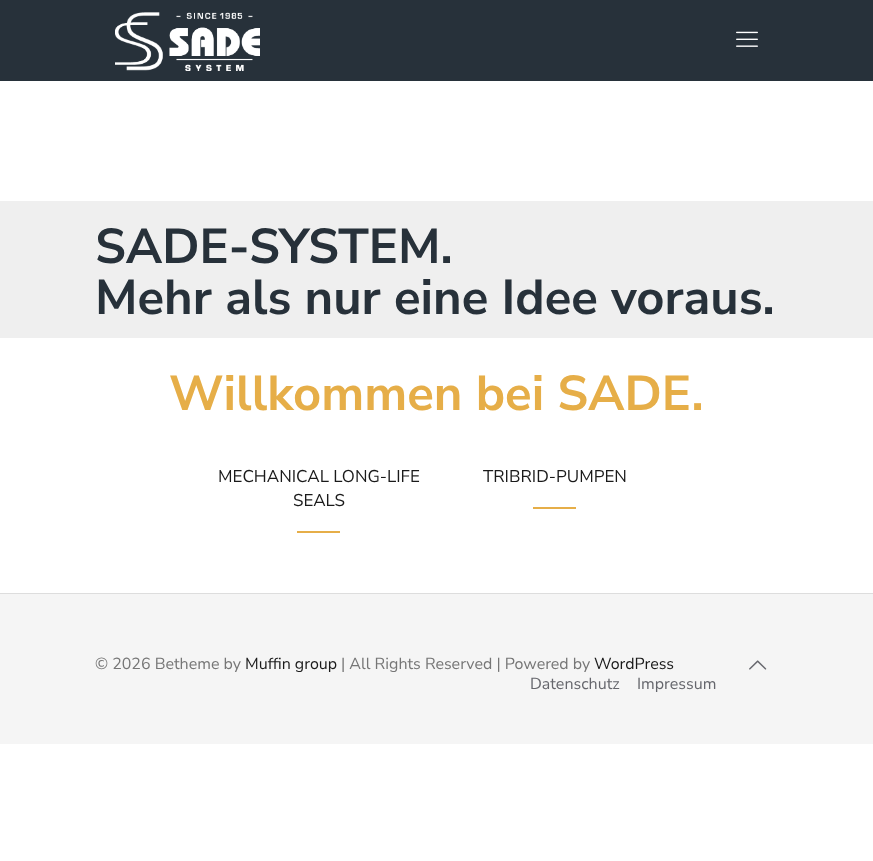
(async () => {
  const canvas = document.querySelector("canvas");
  canvas.width = 873;
  canvas.height = 861;
  const ctx = canvas.getContext("2d");
  ctx.miterLimit = 4;
  ctx.fontKerning = "normal";
  async function loadImage(src) {
    const img = new Image();
    img.src = src;
    await img.decode();
    return img;
  }

  ctx.fillStyle = "#ffffff";
  ctx.fillRect(0, 0, 873, 861);
  ctx.fillStyle = "#27313a";
  ctx.fillRect(0, 0, 873, 81);
  ctx.drawImage(await loadImage("img/1.png"), 115, 12, 145, 59);
  ctx.drawImage(await loadImage("img/2.png"), 736, 31, 22, 16);
  for (const [x, y, w, h, color] of [
    [0, 201, 873, 137, "#efefef"],
    [297, 531, 43, 2, "#e6ae48"],
    [533, 507, 43, 2, "#e6ae48"],
    [0, 594, 873, 150, "#f5f5f5"],
    [0, 593, 873, 1, "#dddddd"],
  ]) {
    ctx.fillStyle = color;
    ctx.fillRect(x, y, w, h);
  }
  ctx.drawImage(await loadImage("img/3.png"), 749, 660, 18, 10);
  ctx.font = "bold 49px Nunito Sans";
  ctx.fillStyle = "#27313a";
  ctx.fillText("SADE-SYSTEM.", 95, 263);
  ctx.fillText("Mehr als nur eine Idee voraus.", 95, 314);
  ctx.fillStyle = "#e6ae48";
  ctx.fillText("Willkommen bei SADE.", 169, 410);
  ctx.font = "17px Nunito Sans";
  ctx.fillStyle = "#1a1a1a";
  for (const [text, x, y] of [
    ["MECHANICAL LONG-LIFE", 218, 482],
    ["SEALS", 293, 506],
    ["TRIBRID-PUMPEN", 483, 482],
  ]) {
    ctx.fillText(text, x, y);
  }
  ctx.font = "16px Nunito Sans";
  ctx.fillStyle = "#767676";
  ctx.fillText("© 2026 Betheme by", 95, 669);
  ctx.fillStyle = "#1a1a1a";
  ctx.fillText("Muffin group", 245, 669);
  ctx.fillStyle = "#767676";
  ctx.fillText("| All Rights Reserved | Powered by", 341, 669);
  ctx.fillStyle = "#1a1a1a";
  ctx.fillText("WordPress", 594, 669);
  ctx.fillStyle = "#65666c";
  ctx.fillText("Datenschutz", 530, 689);
  ctx.fillText("Impressum", 637, 689);
})();
